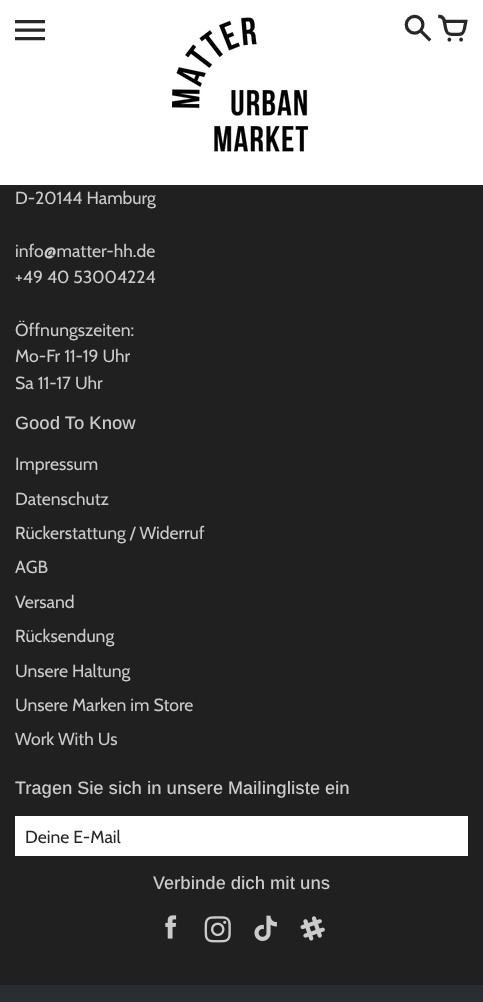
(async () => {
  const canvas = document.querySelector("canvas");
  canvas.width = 483;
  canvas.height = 1002;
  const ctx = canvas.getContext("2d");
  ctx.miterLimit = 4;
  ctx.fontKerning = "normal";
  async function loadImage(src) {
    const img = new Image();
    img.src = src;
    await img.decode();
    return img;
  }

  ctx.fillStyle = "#202020";
  ctx.fillRect(0, 0, 483, 1002);
  ctx.fillStyle = "#ffffff";
  ctx.fillRect(0, 0, 483, 185);
  ctx.drawImage(await loadImage("img/1.png"), 172, 17, 137, 135);
  ctx.fillRect(15, 816, 453, 40);
  ctx.drawImage(await loadImage("img/2.png"), 165, 915, 12, 24);
  ctx.drawImage(await loadImage("img/3.png"), 204, 916, 27, 27);
  ctx.drawImage(await loadImage("img/4.png"), 254, 915, 23, 26);
  ctx.drawImage(await loadImage("img/5.png"), 300, 916, 25, 25);
  ctx.fillStyle = "#2a2d32";
  ctx.fillRect(0, 985, 483, 17);
  ctx.font = "30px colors";
  ctx.fillStyle = "#282828";
  for (const [text, x, y] of [
    ["1", 15, 47],
    ["2", 403, 45],
    ["3", 438, 45],
  ]) {
    ctx.fillText(text, x, y);
  }
  ctx.font = "17.6px Cabin";
  ctx.fillStyle = "#cbcbcb";
  for (const [text, x, y] of [
    ["D-20144 Hamburg", 15, 204],
    ["info@matter-hh.de", 15, 257],
    ["+49 40 53004224", 15, 283],
    ["Öffnungszeiten:", 15, 336],
    ["Mo-Fr 11-19 Uhr", 15, 362],
    ["Sa 11-17 Uhr", 15, 389],
  ]) {
    ctx.fillText(text, x, y);
  }
  ctx.font = "500 18px Arimo";
  ctx.fillText("Good To Know", 15, 429);
  ctx.font = "17.6px Cabin";
  for (const [text, x, y] of [
    ["Impressum", 15, 470],
    ["Datenschutz", 15, 505],
    ["Rückerstattung / Widerruf", 15, 539],
    ["AGB", 15, 573],
    ["Versand", 15, 608],
    ["Rücksendung", 15, 642],
    ["Unsere Haltung", 15, 677],
    ["Unsere Marken im Store", 15, 711],
    ["Work With Us", 15, 745],
  ]) {
    ctx.fillText(text, x, y);
  }
  ctx.font = "500 18px Arimo";
  ctx.fillText("Tragen Sie sich in unsere Mailingliste ein", 15, 794);
  ctx.font = "17.6px Cabin";
  ctx.fillStyle = "#282828";
  ctx.fillText("Deine E-Mail", 25, 843);
  ctx.font = "500 18px Arimo";
  ctx.fillStyle = "#cbcbcb";
  ctx.fillText("Verbinde dich mit uns", 153, 889);
})();
